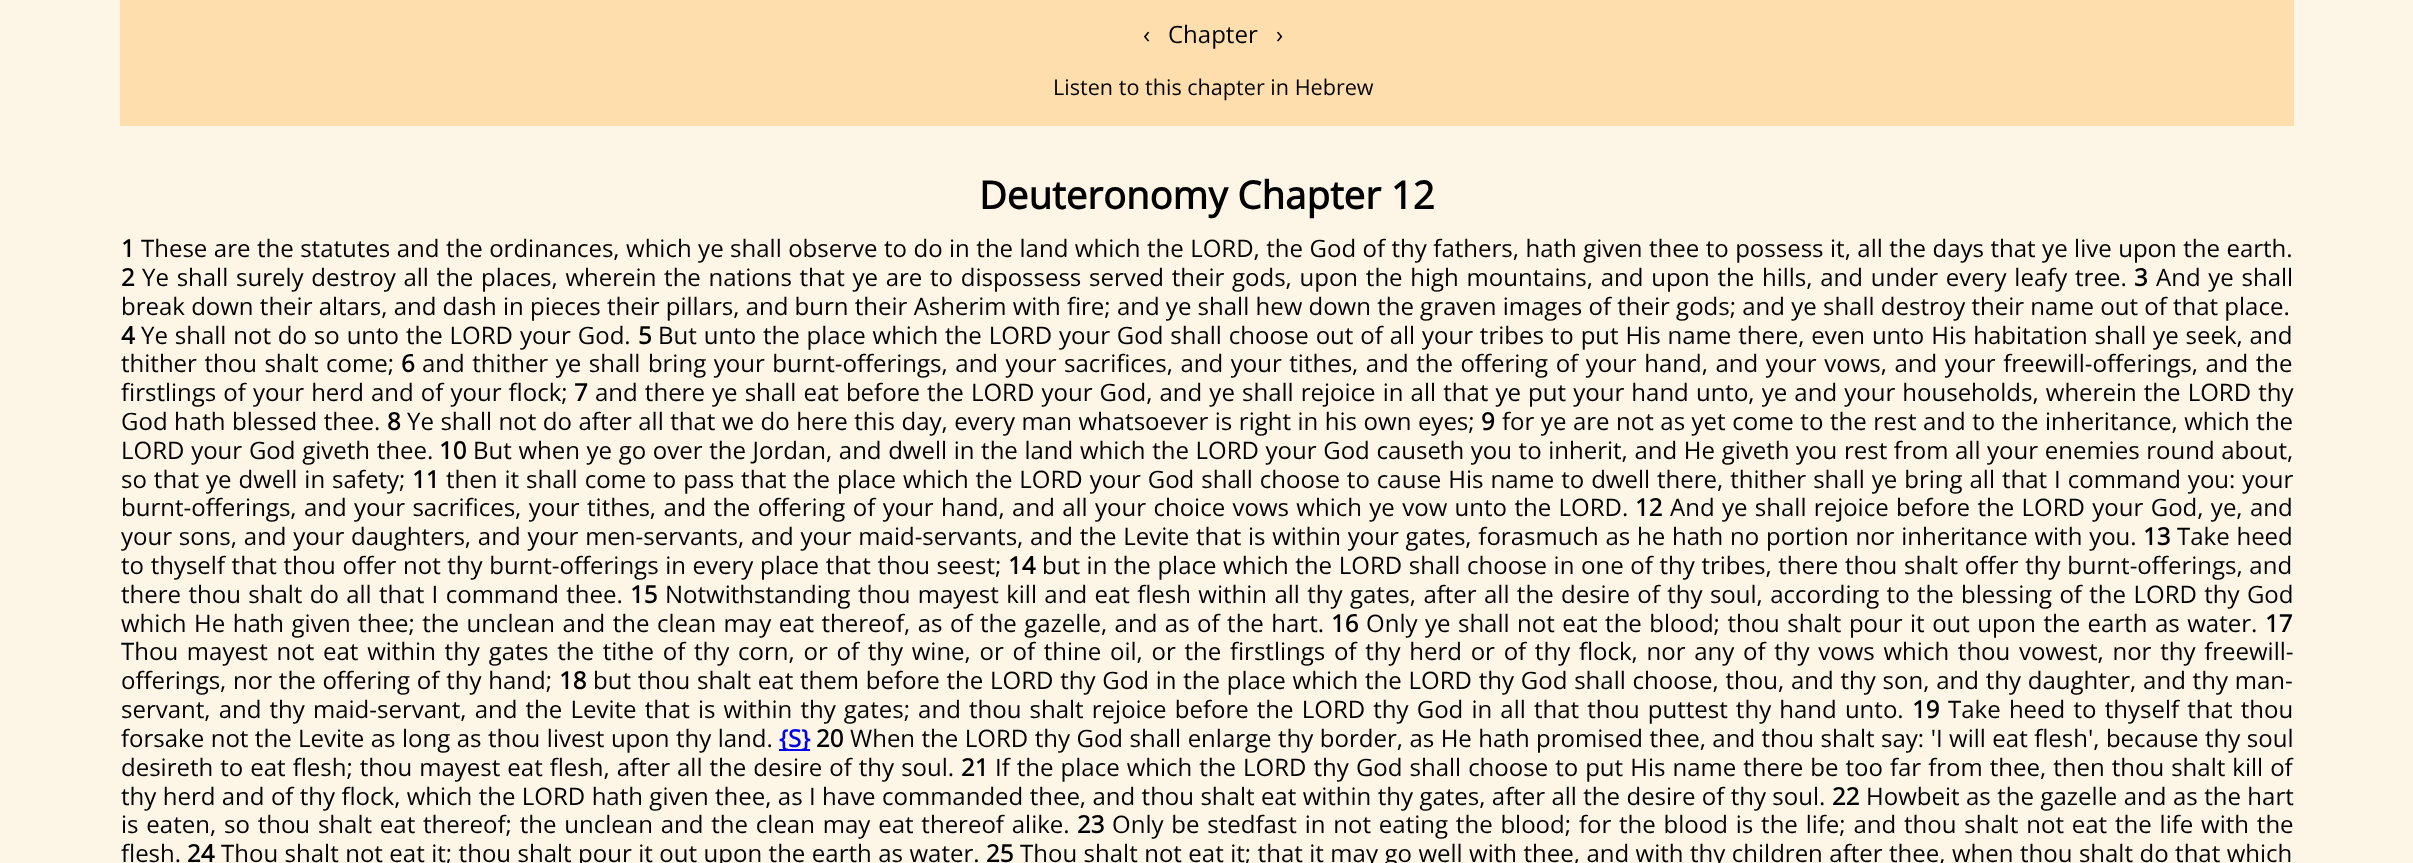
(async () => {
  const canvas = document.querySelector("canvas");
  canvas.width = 2413;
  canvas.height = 863;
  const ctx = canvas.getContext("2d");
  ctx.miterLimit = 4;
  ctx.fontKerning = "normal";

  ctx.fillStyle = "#fdf5e6";
  ctx.fillRect(0, 0, 2413, 863);
  ctx.fillStyle = "#ffdead";
  ctx.fillRect(120, 0, 2174, 126);
  ctx.fillStyle = "#0000ee";
  ctx.fillRect(779, 749, 31, 2);
  ctx.font = "24px Open Sans";
  ctx.fillStyle = "#000000";
  for (const [text, x, y] of [
    ["‹", 1143, 43],
    ["Chapter", 1168, 43],
    ["›", 1276, 43],
  ]) {
    ctx.fillText(text, x, y);
  }
  ctx.font = "21.6px Open Sans";
  ctx.fillText("Listen to this chapter in Hebrew", 1053, 95);
  ctx.font = "bold 38.4px Open Sans";
  ctx.fillText("Deuteronomy Chapter 12", 979, 209);
  ctx.font = "bold 24px Open Sans";
  ctx.fillText("1", 121, 257);
  ctx.wordSpacing = "0.25px";
  ctx.font = "24px Open Sans";
  ctx.fillText("These are the statutes and the ordinances, which ye shall observe to do in the land which the LORD, the God of thy fathers, hath given thee to possess it, all the days that ye live upon the earth.", 141, 257);
  ctx.wordSpacing = "0px";
  ctx.font = "bold 24px Open Sans";
  ctx.fillText("2", 121, 286);
  ctx.wordSpacing = "1.5px";
  ctx.font = "24px Open Sans";
  ctx.fillText("Ye shall surely destroy all the places, wherein the nations that ye are to dispossess served their gods, upon the high mountains, and upon the hills, and under every leafy tree.", 142, 286);
  ctx.wordSpacing = "0px";
  ctx.font = "bold 24px Open Sans";
  ctx.fillText("3", 2134, 286);
  ctx.wordSpacing = "1.5px";
  ctx.font = "24px Open Sans";
  ctx.fillText("And ye shall", 2156, 286);
  ctx.wordSpacing = "0px";
  ctx.fillText("break down their altars, and dash in pieces their pillars, and burn their Asherim with fire; and ye shall hew down the graven images of their gods; and ye shall destroy their name out of that place.", 121, 315);
  ctx.font = "bold 24px Open Sans";
  ctx.fillText("4", 121, 344);
  ctx.wordSpacing = "0.65px";
  ctx.font = "24px Open Sans";
  ctx.fillText("Ye shall not do so unto the LORD your God.", 141, 344);
  ctx.wordSpacing = "0px";
  ctx.font = "bold 24px Open Sans";
  ctx.fillText("5", 638, 344);
  ctx.wordSpacing = "0.65px";
  ctx.font = "24px Open Sans";
  ctx.fillText("But unto the place which the LORD your God shall choose out of all your tribes to put His name there, even unto His habitation shall ye seek, and", 658, 344);
  ctx.wordSpacing = "1.3px";
  ctx.fillText("thither thou shalt come;", 121, 372);
  ctx.wordSpacing = "0px";
  ctx.font = "bold 24px Open Sans";
  ctx.fillText("6", 401, 372);
  ctx.wordSpacing = "1.3px";
  ctx.font = "24px Open Sans";
  ctx.fillText("and thither ye shall bring your burnt-offerings, and your sacrifices, and your tithes, and the offering of your hand, and your vows, and your freewill-offerings, and the", 422, 372);
  ctx.wordSpacing = "0.9px";
  ctx.fillText("firstlings of your herd and of your flock;", 121, 401);
  ctx.wordSpacing = "0px";
  ctx.font = "bold 24px Open Sans";
  ctx.fillText("7", 574, 401);
  ctx.wordSpacing = "0.9px";
  ctx.font = "24px Open Sans";
  ctx.fillText("and there ye shall eat before the LORD your God, and ye shall rejoice in all that ye put your hand unto, ye and your households, wherein the LORD thy", 595, 401);
  ctx.wordSpacing = "0.3px";
  ctx.fillText("God hath blessed thee.", 121, 430);
  ctx.wordSpacing = "0px";
  ctx.font = "bold 24px Open Sans";
  ctx.fillText("8", 387, 430);
  ctx.wordSpacing = "0.3px";
  ctx.font = "24px Open Sans";
  ctx.fillText("Ye shall not do after all that we do here this day, every man whatsoever is right in his own eyes;", 407, 430);
  ctx.wordSpacing = "0px";
  ctx.font = "bold 24px Open Sans";
  ctx.fillText("9", 1481, 430);
  ctx.wordSpacing = "0.3px";
  ctx.font = "24px Open Sans";
  ctx.fillText("for ye are not as yet come to the rest and to the inheritance, which the", 1502, 430);
  ctx.wordSpacing = "0.5px";
  ctx.fillText("LORD your God giveth thee.", 121, 459);
  ctx.wordSpacing = "0px";
  ctx.font = "bold 24px Open Sans";
  ctx.fillText("10", 439, 459);
  ctx.wordSpacing = "0.4px";
  ctx.font = "24px Open Sans";
  ctx.fillText("But when ye go over the Jordan, and dwell in the land which the LORD your God causeth you to inherit, and He giveth you rest from all your enemies round about,", 473, 459);
  ctx.wordSpacing = "0.75px";
  ctx.fillText("so that ye dwell in safety;", 121, 488);
  ctx.wordSpacing = "0px";
  ctx.font = "bold 24px Open Sans";
  ctx.fillText("11", 412, 488);
  ctx.wordSpacing = "0.75px";
  ctx.font = "24px Open Sans";
  ctx.fillText("then it shall come to pass that the place which the LORD your God shall choose to cause His name to dwell there, thither shall ye bring all that I command you: your", 446, 488);
  ctx.wordSpacing = "1.15px";
  ctx.fillText("burnt-offerings, and your sacrifices, your tithes, and the offering of your hand, and all your choice vows which ye vow unto the LORD.", 121, 516);
  ctx.wordSpacing = "0px";
  ctx.font = "bold 24px Open Sans";
  ctx.fillText("12", 1635, 516);
  ctx.wordSpacing = "1.15px";
  ctx.font = "24px Open Sans";
  ctx.fillText("And ye shall rejoice before the LORD your God, ye, and", 1670, 516);
  ctx.wordSpacing = "0.55px";
  ctx.fillText("your sons, and your daughters, and your men-servants, and your maid-servants, and the Levite that is within your gates, forasmuch as he hath no portion nor inheritance with you.", 121, 545);
  ctx.wordSpacing = "0px";
  ctx.font = "bold 24px Open Sans";
  ctx.fillText("13", 2143, 545);
  ctx.wordSpacing = "0.55px";
  ctx.font = "24px Open Sans";
  ctx.fillText("Take heed", 2177, 545);
  ctx.wordSpacing = "0.4px";
  ctx.fillText("to thyself that thou offer not thy burnt-offerings in every place that thou seest;", 121, 574);
  ctx.wordSpacing = "0px";
  ctx.font = "bold 24px Open Sans";
  ctx.fillText("14", 1008, 574);
  ctx.wordSpacing = "0.4px";
  ctx.font = "24px Open Sans";
  ctx.fillText("but in the place which the LORD shall choose in one of thy tribes, there thou shalt offer thy burnt-offerings, and", 1042, 574);
  ctx.wordSpacing = "1.15px";
  ctx.fillText("there thou shalt do all that I command thee.", 121, 603);
  ctx.wordSpacing = "0px";
  ctx.font = "bold 24px Open Sans";
  ctx.fillText("15", 630, 603);
  ctx.wordSpacing = "1.15px";
  ctx.font = "24px Open Sans";
  ctx.fillText("Notwithstanding thou mayest kill and eat flesh within all thy gates, after all the desire of thy soul, according to the blessing of the LORD thy God", 665, 603);
  ctx.wordSpacing = "1.25px";
  ctx.fillText("which He hath given thee; the unclean and the clean may eat thereof, as of the gazelle, and as of the hart.", 121, 632);
  ctx.wordSpacing = "0px";
  ctx.font = "bold 24px Open Sans";
  ctx.fillText("16", 1331, 632);
  ctx.wordSpacing = "1.25px";
  ctx.font = "24px Open Sans";
  ctx.fillText("Only ye shall not eat the blood; thou shalt pour it out upon the earth as water.", 1366, 632);
  ctx.wordSpacing = "0px";
  ctx.font = "bold 24px Open Sans";
  ctx.fillText("17", 2265, 632);
  ctx.wordSpacing = "2.5px";
  ctx.font = "24px Open Sans";
  ctx.fillText("Thou mayest not eat within thy gates the tithe of thy corn, or of thy wine, or of thine oil, or the firstlings of thy herd or of thy flock, nor any of thy vows which thou vowest, nor thy freewill-", 121, 660);
  ctx.wordSpacing = "0.55px";
  ctx.fillText("offerings, nor the offering of thy hand;", 121, 689);
  ctx.wordSpacing = "0px";
  ctx.font = "bold 24px Open Sans";
  ctx.fillText("18", 559, 689);
  ctx.wordSpacing = "0.55px";
  ctx.font = "24px Open Sans";
  ctx.fillText("but thou shalt eat them before the LORD thy God in the place which the LORD thy God shall choose, thou, and thy son, and thy daughter, and thy man-", 593, 689);
  ctx.wordSpacing = "1.9px";
  ctx.fillText("servant, and thy maid-servant, and the Levite that is within thy gates; and thou shalt rejoice before the LORD thy God in all that thou puttest thy hand unto.", 121, 718);
  ctx.wordSpacing = "0px";
  ctx.font = "bold 24px Open Sans";
  ctx.fillText("19", 1912, 718);
  ctx.wordSpacing = "2px";
  ctx.font = "24px Open Sans";
  ctx.fillText("Take heed to thyself that thou", 1948, 718);
  ctx.wordSpacing = "0.25px";
  ctx.fillText("forsake not the Levite as long as thou livest upon thy land.", 121, 747);
  ctx.wordSpacing = "0px";
  ctx.font = "bold 24px Open Sans";
  ctx.fillStyle = "#0000ee";
  ctx.fillText("{S}", 779, 747);
  ctx.fillStyle = "#000000";
  ctx.fillText("20", 816, 747);
  ctx.wordSpacing = "0.25px";
  ctx.font = "24px Open Sans";
  ctx.fillText("When the LORD thy God shall enlarge thy border, as He hath promised thee, and thou shalt say: 'I will eat flesh', because thy soul", 850, 747);
  ctx.wordSpacing = "0.8px";
  ctx.fillText("desireth to eat flesh; thou mayest eat flesh, after all the desire of thy soul.", 121, 776);
  ctx.wordSpacing = "0px";
  ctx.font = "bold 24px Open Sans";
  ctx.fillText("21", 961, 776);
  ctx.wordSpacing = "0.8px";
  ctx.font = "24px Open Sans";
  ctx.fillText("If the place which the LORD thy God shall choose to put His name there be too far from thee, then thou shalt kill of", 995, 776);
  ctx.wordSpacing = "0.15px";
  ctx.fillText("thy herd and of thy flock, which the LORD hath given thee, as I have commanded thee, and thou shalt eat within thy gates, after all the desire of thy soul.", 121, 805);
  ctx.wordSpacing = "0px";
  ctx.font = "bold 24px Open Sans";
  ctx.fillText("22", 1832, 805);
  ctx.wordSpacing = "0.25px";
  ctx.font = "24px Open Sans";
  ctx.fillText("Howbeit as the gazelle and as the hart", 1866, 805);
  ctx.wordSpacing = "1.6px";
  ctx.fillText("is eaten, so thou shalt eat thereof; the unclean and the clean may eat thereof alike.", 121, 833);
  ctx.wordSpacing = "0px";
  ctx.font = "bold 24px Open Sans";
  ctx.fillText("23", 1077, 833);
  ctx.wordSpacing = "1.6px";
  ctx.font = "24px Open Sans";
  ctx.fillText("Only be stedfast in not eating the blood; for the blood is the life; and thou shalt not eat the life with the", 1112, 833);
  ctx.wordSpacing = "0px";
  ctx.fillText("flesh.", 121, 862);
  ctx.font = "bold 24px Open Sans";
  ctx.fillText("24", 187, 862);
  ctx.wordSpacing = "0.25px";
  ctx.font = "24px Open Sans";
  ctx.fillText("Thou shalt not eat it; thou shalt pour it out upon the earth as water.", 221, 862);
  ctx.wordSpacing = "0px";
  ctx.font = "bold 24px Open Sans";
  ctx.fillText("25", 986, 862);
  ctx.wordSpacing = "0.25px";
  ctx.font = "24px Open Sans";
  ctx.fillText("Thou shalt not eat it; that it may go well with thee, and with thy children after thee, when thou shalt do that which", 1020, 862);
})();
